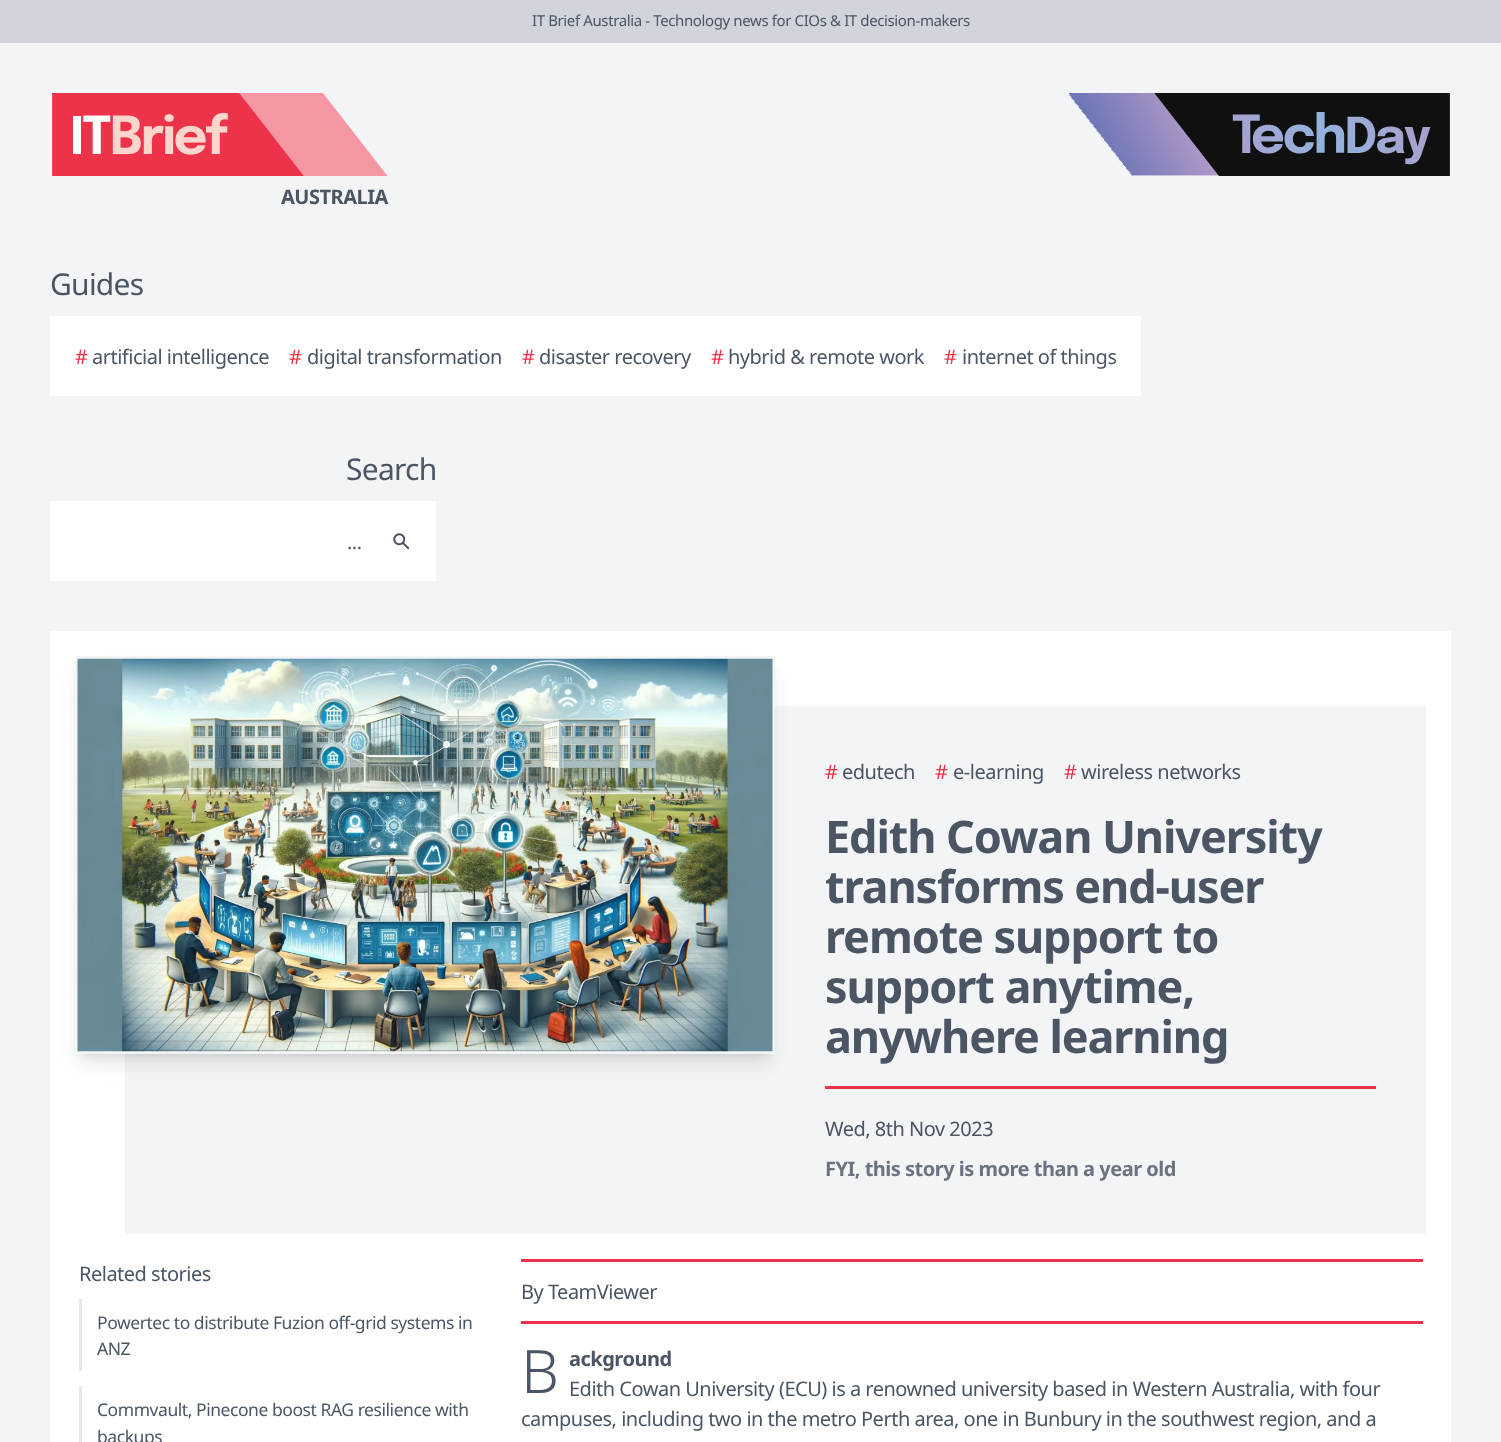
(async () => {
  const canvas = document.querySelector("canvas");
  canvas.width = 1501;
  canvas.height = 1442;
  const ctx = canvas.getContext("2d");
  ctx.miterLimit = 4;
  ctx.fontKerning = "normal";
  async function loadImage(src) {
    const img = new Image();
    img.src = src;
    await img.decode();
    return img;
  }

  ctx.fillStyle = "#f3f4f6";
  ctx.fillRect(0, 0, 1501, 1442);
  ctx.fillStyle = "#d1d5db";
  ctx.fillRect(0, 0, 1501, 43);
  ctx.drawImage(await loadImage("img/1.png"), 1069, 93, 381, 83);
  ctx.drawImage(await loadImage("img/2.png"), 52, 93, 336, 83);
  ctx.fillStyle = "#ffffff";
  ctx.fillRect(50, 316, 1091, 80);
  ctx.fillRect(50, 501, 386, 80);
  ctx.drawImage(await loadImage("img/3.png"), 393, 533, 17, 17);
  ctx.fillRect(50, 631, 1401, 811);
  ctx.fillStyle = "#f3f4f6";
  ctx.fillRect(125, 706, 1301, 528);
  ctx.fillStyle = "rgba(0, 0, 0, 0.1)";
  ctx.filter = "blur(4px)";
  ctx.beginPath();
  ctx.rect(80, 666, 690, 388);
  ctx.fill();
  ctx.filter = "none";
  ctx.filter = "blur(9.5px)";
  ctx.beginPath();
  ctx.rect(79, 673, 692, 390);
  ctx.fill();
  ctx.filter = "none";
  ctx.strokeStyle = "#f3f4f6";
  ctx.lineWidth = 3;
  ctx.strokeRect(76.5, 657.5, 697, 395);
  ctx.drawImage(await loadImage("img/4.png"), 77, 658, 696, 394);
  for (const [x, y, w, h, color] of [
    [825, 1086, 551, 3, "#ed334a"],
    [79, 1299, 3, 72, "#e5e7eb"],
    [79, 1386, 3, 56, "#e5e7eb"],
    [521, 1259, 902, 3, "#ed334a"],
    [521, 1321, 902, 3, "#ed334a"],
  ]) {
    ctx.fillStyle = color;
    ctx.fillRect(x, y, w, h);
  }
  ctx.letterSpacing = "-0.38px";
  ctx.font = "15px Noto Sans";
  ctx.fillStyle = "#4b5563";
  ctx.fillText("IT Brief Australia - Technology news for CIOs & IT decision-makers", 532, 26);
  ctx.letterSpacing = "-0.5px";
  ctx.font = "bold 20px Noto Sans";
  ctx.fillText("AUSTRALIA", 281, 204);
  ctx.letterSpacing = "-0.75px";
  ctx.font = "30px Noto Sans";
  ctx.fillText("Guides", 50, 295);
  ctx.letterSpacing = "-0.5px";
  ctx.font = "20px Noto Sans";
  ctx.fillStyle = "#ed334a";
  ctx.fillText("#", 75, 364);
  ctx.fillStyle = "#4b5563";
  ctx.fillText("artificial intelligence", 92, 364);
  ctx.fillStyle = "#ed334a";
  ctx.fillText("#", 289, 364);
  ctx.fillStyle = "#4b5563";
  ctx.fillText("digital transformation", 307, 364);
  ctx.fillStyle = "#ed334a";
  ctx.fillText("#", 522, 364);
  ctx.fillStyle = "#4b5563";
  ctx.fillText("disaster recovery", 539, 364);
  ctx.fillStyle = "#ed334a";
  ctx.fillText("#", 711, 364);
  ctx.fillStyle = "#4b5563";
  ctx.fillText("hybrid & remote work", 728, 364);
  ctx.fillStyle = "#ed334a";
  ctx.fillText("#", 944, 364);
  ctx.fillStyle = "#4b5563";
  ctx.fillText("internet of things", 962, 364);
  ctx.letterSpacing = "-0.75px";
  ctx.font = "30px Noto Sans";
  ctx.fillText("Search", 346, 480);
  ctx.letterSpacing = "-0.5px";
  ctx.font = "20px Noto Sans";
  ctx.fillText("...", 347, 549);
  ctx.fillStyle = "#ed334a";
  ctx.fillText("#", 825, 779);
  ctx.fillStyle = "#4b5563";
  ctx.fillText("edutech", 842, 779);
  ctx.fillStyle = "#ed334a";
  ctx.fillText("#", 935, 779);
  ctx.fillStyle = "#4b5563";
  ctx.fillText("e-learning", 953, 779);
  ctx.fillStyle = "#ed334a";
  ctx.fillText("#", 1064, 779);
  ctx.fillStyle = "#4b5563";
  ctx.fillText("wireless networks", 1081, 779);
  ctx.letterSpacing = "-1.1px";
  ctx.font = "bold 45px Noto Sans";
  for (const [text, x, y] of [
    ["Edith Cowan University", 825, 853],
    ["transforms end-user", 825, 903],
    ["remote support to", 825, 953],
    ["support anytime,", 825, 1003],
    ["anywhere learning", 825, 1053],
  ]) {
    ctx.fillText(text, x, y);
  }
  ctx.letterSpacing = "-0.5px";
  ctx.font = "20px Noto Sans";
  ctx.fillText("Wed, 8th Nov 2023", 825, 1136);
  ctx.font = "bold 20px Noto Sans";
  ctx.fillStyle = "#6b7280";
  ctx.fillText("FYI, this story is more than a year old", 825, 1176);
  ctx.font = "20px Noto Sans";
  ctx.fillStyle = "#4b5563";
  ctx.fillText("Related stories", 79, 1281);
  ctx.letterSpacing = "-0.45px";
  ctx.font = "17.5px Noto Sans";
  for (const [text, x, y] of [
    ["Powertec to distribute Fuzion off-grid systems in", 97, 1329],
    ["ANZ", 97, 1355],
    ["Commvault, Pinecone boost RAG resilience with", 97, 1416],
    ["backups", 97, 1443],
  ]) {
    ctx.fillText(text, x, y);
  }
  ctx.letterSpacing = "-0.5px";
  ctx.font = "20px Noto Sans";
  ctx.fillText("By TeamViewer", 521, 1299);
  ctx.font = "bold 20px Noto Sans";
  ctx.fillText("ackground", 569, 1366);
  ctx.font = "20px Noto Sans";
  ctx.fillText("Edith Cowan University (ECU) is a renowned university based in Western Australia, with four", 569, 1396);
  ctx.fillText("campuses, including two in the metro Perth area, one in Bunbury in the southwest region, and a", 521, 1426);
  ctx.font = "300 60px Noto Sans";
  ctx.fillText("B", 521, 1393);
})();
